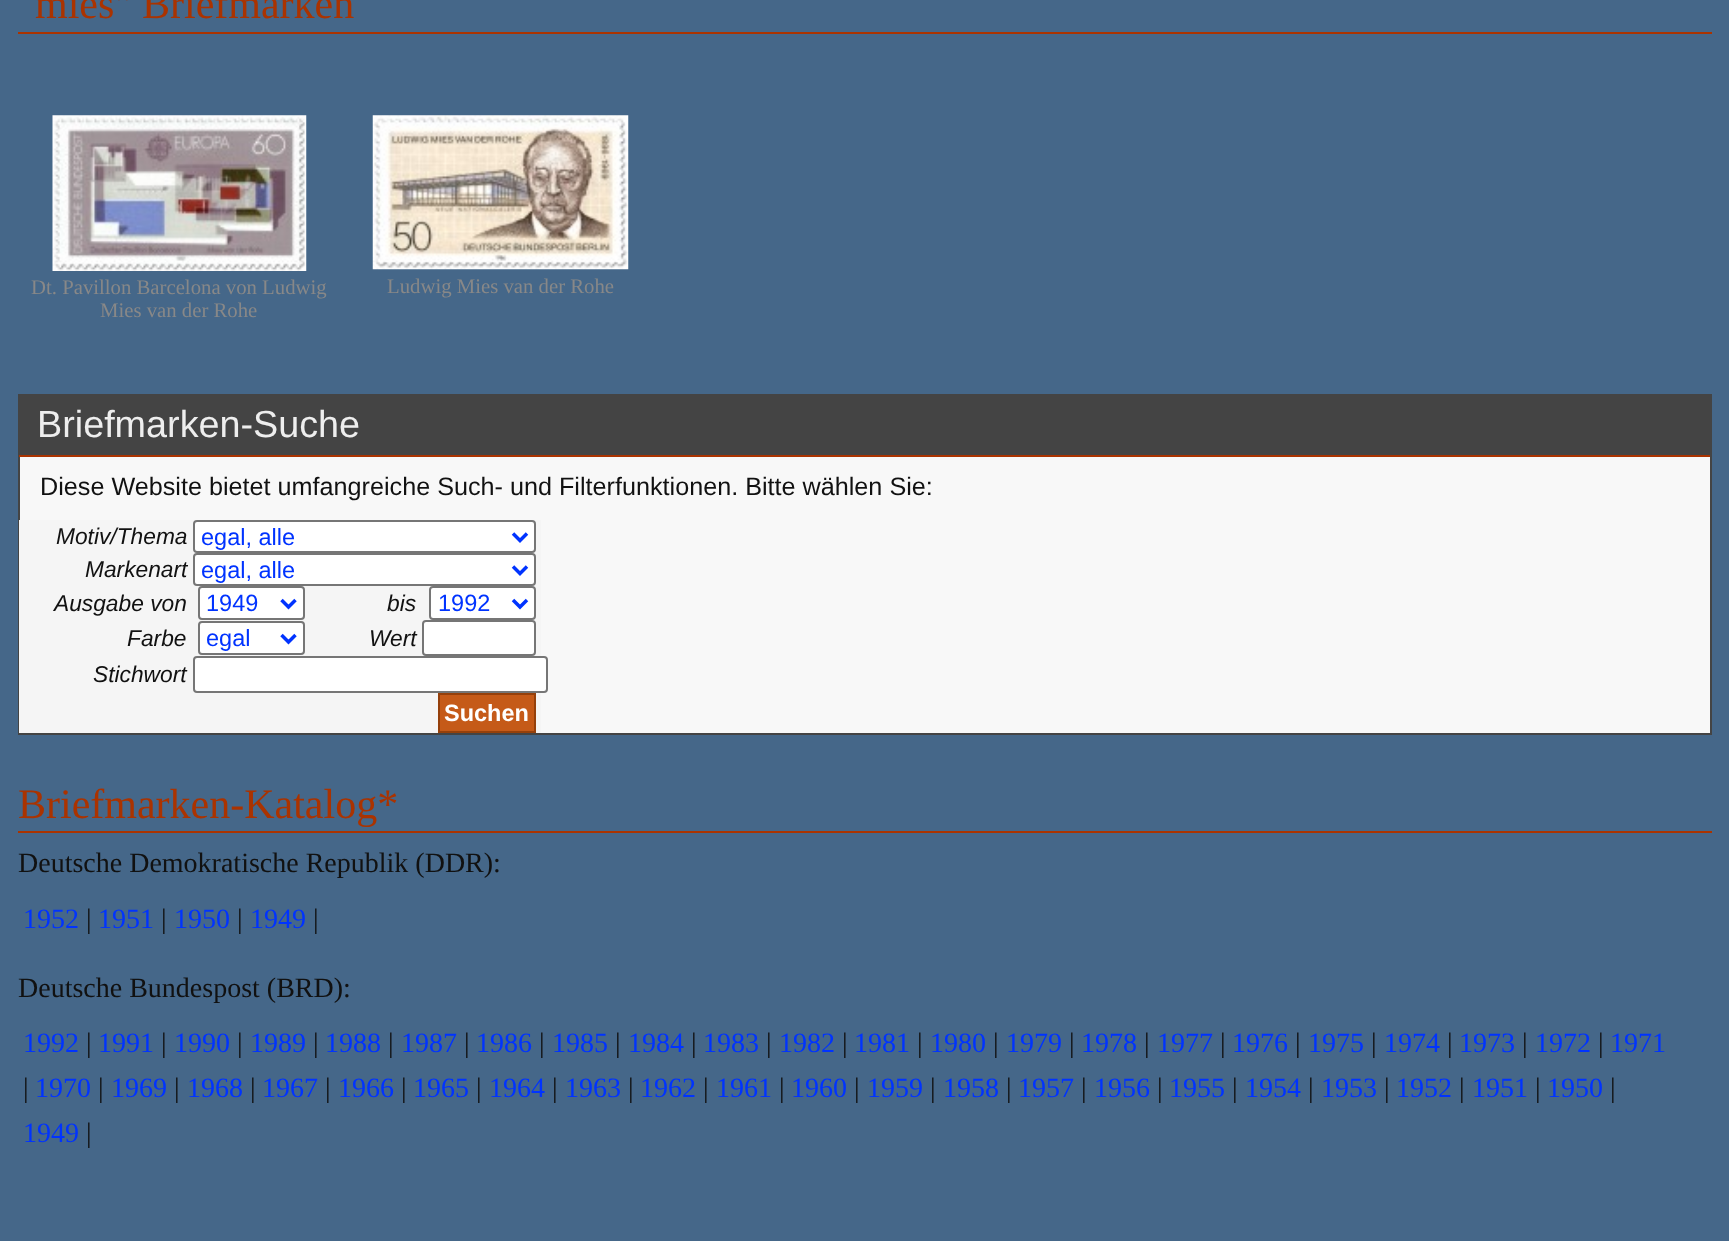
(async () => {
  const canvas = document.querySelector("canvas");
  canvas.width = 1729;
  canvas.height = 1241;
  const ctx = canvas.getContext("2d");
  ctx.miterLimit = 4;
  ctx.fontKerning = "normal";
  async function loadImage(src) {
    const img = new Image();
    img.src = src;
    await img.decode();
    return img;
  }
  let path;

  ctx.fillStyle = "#456789";
  ctx.fillRect(0, 0, 1729, 1241);
  ctx.fillStyle = "#aa3300";
  ctx.fillRect(18, 32, 1694, 2);
  ctx.drawImage(await loadImage("img/1.png"), 52, 115, 255, 156);
  ctx.drawImage(await loadImage("img/2.png"), 372, 115, 257, 155);
  ctx.fillStyle = "#f8f8f8";
  ctx.fillRect(20, 457, 1690, 276);
  ctx.strokeStyle = "#444444";
  ctx.lineWidth = 2;
  ctx.strokeRect(19, 395, 1692, 339);
  for (const [x, y, w, h, color] of [
    [20, 396, 1690, 59, "#444444"],
    [19, 455, 1691, 2, "#aa3300"],
    [19, 520, 522, 213, "#f5f5f5"],
  ]) {
    ctx.fillStyle = color;
    ctx.fillRect(x, y, w, h);
  }
  ctx.fillStyle = "#ffffff";
  ctx.beginPath();
  ctx.roundRect(194, 521, 341, 31, 3);
  ctx.fill();
  ctx.strokeStyle = "#767676";
  ctx.stroke();
  path = new Path2D("M513 533.5L520 540.5L527 533.5");
  ctx.strokeStyle = "#0033ff";
  ctx.lineWidth = 3.5;
  ctx.stroke(path);
  ctx.beginPath();
  ctx.roundRect(194, 554, 341, 31, 3);
  ctx.fill();
  ctx.strokeStyle = "#767676";
  ctx.lineWidth = 2;
  ctx.stroke();
  path = new Path2D("M513 566.5L520 573.5L527 566.5");
  ctx.strokeStyle = "#0033ff";
  ctx.lineWidth = 3.5;
  ctx.stroke(path);
  ctx.beginPath();
  ctx.roundRect(199, 587, 105, 32, 3);
  ctx.fill();
  ctx.strokeStyle = "#767676";
  ctx.lineWidth = 2;
  ctx.stroke();
  path = new Path2D("M281.5 600L288.5 607L295.5 600");
  ctx.strokeStyle = "#0033ff";
  ctx.lineWidth = 3.5;
  ctx.stroke(path);
  ctx.beginPath();
  ctx.roundRect(430, 587, 105, 32, 3);
  ctx.fill();
  ctx.strokeStyle = "#767676";
  ctx.lineWidth = 2;
  ctx.stroke();
  path = new Path2D("M513 600L520 607L527 600");
  ctx.strokeStyle = "#0033ff";
  ctx.lineWidth = 3.5;
  ctx.stroke(path);
  ctx.beginPath();
  ctx.roundRect(199, 622, 105, 32, 3);
  ctx.fill();
  ctx.strokeStyle = "#767676";
  ctx.lineWidth = 2;
  ctx.stroke();
  path = new Path2D("M281.5 635L288.5 642L295.5 635");
  ctx.strokeStyle = "#0033ff";
  ctx.lineWidth = 3.5;
  ctx.stroke(path);
  ctx.beginPath();
  ctx.roundRect(423, 621, 112, 34, 3);
  ctx.fill();
  ctx.strokeStyle = "#767676";
  ctx.lineWidth = 2;
  ctx.stroke();
  ctx.beginPath();
  ctx.roundRect(194, 657, 353, 35, 3);
  ctx.fill();
  ctx.stroke();
  ctx.fillStyle = "#c55a18";
  ctx.beginPath();
  ctx.rect(439, 694, 96, 38);
  ctx.fill();
  ctx.strokeStyle = "#95400b";
  ctx.stroke();
  ctx.fillStyle = "#aa3300";
  ctx.fillRect(18, 831, 1694, 2);
  ctx.font = "42px Liberation Serif";
  ctx.fillText("mies\" Briefmarken", 35, 18);
  ctx.font = "20.75px Liberation Serif";
  ctx.fillStyle = "#888888";
  for (const [text, x, y] of [
    ["Dt. Pavillon Barcelona von Ludwig", 31, 294],
    ["Mies van der Rohe", 100, 317],
    ["Ludwig Mies van der Rohe", 387, 293],
  ]) {
    ctx.fillText(text, x, y);
  }
  ctx.font = "37.75px Liberation Sans";
  ctx.fillStyle = "#eeeeee";
  ctx.fillText("Briefmarken-Suche", 37, 437);
  ctx.font = "25.2px Liberation Sans";
  ctx.fillStyle = "#111111";
  ctx.fillText("Diese Website bietet umfangreiche Such- und Filterfunktionen. Bitte wählen Sie:", 40, 495);
  ctx.font = "italic 22.75px Liberation Sans";
  ctx.fillText("Motiv/Thema", 56, 544);
  ctx.font = "23.5px Liberation Sans";
  ctx.fillStyle = "#0033ff";
  ctx.fillText("egal, alle", 201, 545);
  ctx.font = "italic 22.75px Liberation Sans";
  ctx.fillStyle = "#111111";
  ctx.fillText("Markenart", 85, 577);
  ctx.font = "23.5px Liberation Sans";
  ctx.fillStyle = "#0033ff";
  ctx.fillText("egal, alle", 201, 578);
  ctx.font = "italic 22.75px Liberation Sans";
  ctx.fillStyle = "#111111";
  ctx.fillText("Ausgabe von", 54, 611);
  ctx.font = "23.5px Liberation Sans";
  ctx.fillStyle = "#0033ff";
  ctx.fillText("1949", 206, 611);
  ctx.font = "italic 22.75px Liberation Sans";
  ctx.fillStyle = "#111111";
  ctx.fillText("bis", 387, 611);
  ctx.font = "23.5px Liberation Sans";
  ctx.fillStyle = "#0033ff";
  ctx.fillText("1992", 438, 611);
  ctx.font = "italic 22.75px Liberation Sans";
  ctx.fillStyle = "#111111";
  ctx.fillText("Farbe", 127, 646);
  ctx.font = "23.5px Liberation Sans";
  ctx.fillStyle = "#0033ff";
  ctx.fillText("egal", 206, 646);
  ctx.font = "italic 22.75px Liberation Sans";
  ctx.fillStyle = "#111111";
  ctx.fillText("Wert", 369, 646);
  ctx.fillText("Stichwort", 93, 682);
  ctx.font = "bold 23.5px Liberation Sans";
  ctx.fillStyle = "#ffffff";
  ctx.fillText("Suchen", 444, 721);
  ctx.font = "42px Liberation Serif";
  ctx.fillStyle = "#aa3300";
  ctx.fillText("Briefmarken-Katalog*", 18, 818);
  ctx.font = "28px Liberation Serif";
  ctx.fillStyle = "#111111";
  ctx.fillText("Deutsche Demokratische Republik (DDR):", 18, 872);
  ctx.fillStyle = "#0033ff";
  ctx.fillText("1952", 23, 928);
  ctx.fillStyle = "#111111";
  ctx.fillText("|", 86, 928);
  ctx.fillStyle = "#0033ff";
  ctx.fillText("1951", 98, 928);
  ctx.fillStyle = "#111111";
  ctx.fillText("|", 161, 928);
  ctx.fillStyle = "#0033ff";
  ctx.fillText("1950", 174, 928);
  ctx.fillStyle = "#111111";
  ctx.fillText("|", 237, 928);
  ctx.fillStyle = "#0033ff";
  ctx.fillText("1949", 250, 928);
  ctx.fillStyle = "#111111";
  ctx.fillText("|", 313, 928);
  ctx.fillText("Deutsche Bundespost (BRD):", 18, 997);
  ctx.fillStyle = "#0033ff";
  ctx.fillText("1992", 23, 1052);
  ctx.fillStyle = "#111111";
  ctx.fillText("|", 86, 1052);
  ctx.fillStyle = "#0033ff";
  ctx.fillText("1991", 98, 1052);
  ctx.fillStyle = "#111111";
  ctx.fillText("|", 161, 1052);
  ctx.fillStyle = "#0033ff";
  ctx.fillText("1990", 174, 1052);
  ctx.fillStyle = "#111111";
  ctx.fillText("|", 237, 1052);
  ctx.fillStyle = "#0033ff";
  ctx.fillText("1989", 250, 1052);
  ctx.fillStyle = "#111111";
  ctx.fillText("|", 313, 1052);
  ctx.fillStyle = "#0033ff";
  ctx.fillText("1988", 325, 1052);
  ctx.fillStyle = "#111111";
  ctx.fillText("|", 388, 1052);
  ctx.fillStyle = "#0033ff";
  ctx.fillText("1987", 401, 1052);
  ctx.fillStyle = "#111111";
  ctx.fillText("|", 464, 1052);
  ctx.fillStyle = "#0033ff";
  ctx.fillText("1986", 476, 1052);
  ctx.fillStyle = "#111111";
  ctx.fillText("|", 539, 1052);
  ctx.fillStyle = "#0033ff";
  ctx.fillText("1985", 552, 1052);
  ctx.fillStyle = "#111111";
  ctx.fillText("|", 615, 1052);
  ctx.fillStyle = "#0033ff";
  ctx.fillText("1984", 628, 1052);
  ctx.fillStyle = "#111111";
  ctx.fillText("|", 691, 1052);
  ctx.fillStyle = "#0033ff";
  ctx.fillText("1983", 703, 1052);
  ctx.fillStyle = "#111111";
  ctx.fillText("|", 766, 1052);
  ctx.fillStyle = "#0033ff";
  ctx.fillText("1982", 779, 1052);
  ctx.fillStyle = "#111111";
  ctx.fillText("|", 842, 1052);
  ctx.fillStyle = "#0033ff";
  ctx.fillText("1981", 854, 1052);
  ctx.fillStyle = "#111111";
  ctx.fillText("|", 917, 1052);
  ctx.fillStyle = "#0033ff";
  ctx.fillText("1980", 930, 1052);
  ctx.fillStyle = "#111111";
  ctx.fillText("|", 993, 1052);
  ctx.fillStyle = "#0033ff";
  ctx.fillText("1979", 1006, 1052);
  ctx.fillStyle = "#111111";
  ctx.fillText("|", 1069, 1052);
  ctx.fillStyle = "#0033ff";
  ctx.fillText("1978", 1081, 1052);
  ctx.fillStyle = "#111111";
  ctx.fillText("|", 1144, 1052);
  ctx.fillStyle = "#0033ff";
  ctx.fillText("1977", 1157, 1052);
  ctx.fillStyle = "#111111";
  ctx.fillText("|", 1220, 1052);
  ctx.fillStyle = "#0033ff";
  ctx.fillText("1976", 1232, 1052);
  ctx.fillStyle = "#111111";
  ctx.fillText("|", 1295, 1052);
  ctx.fillStyle = "#0033ff";
  ctx.fillText("1975", 1308, 1052);
  ctx.fillStyle = "#111111";
  ctx.fillText("|", 1371, 1052);
  ctx.fillStyle = "#0033ff";
  ctx.fillText("1974", 1384, 1052);
  ctx.fillStyle = "#111111";
  ctx.fillText("|", 1447, 1052);
  ctx.fillStyle = "#0033ff";
  ctx.fillText("1973", 1459, 1052);
  ctx.fillStyle = "#111111";
  ctx.fillText("|", 1522, 1052);
  ctx.fillStyle = "#0033ff";
  ctx.fillText("1972", 1535, 1052);
  ctx.fillStyle = "#111111";
  ctx.fillText("|", 1598, 1052);
  ctx.fillStyle = "#0033ff";
  ctx.fillText("1971", 1610, 1052);
  ctx.fillStyle = "#111111";
  ctx.fillText("|", 23, 1097);
  ctx.fillStyle = "#0033ff";
  ctx.fillText("1970", 35, 1097);
  ctx.fillStyle = "#111111";
  ctx.fillText("|", 98, 1097);
  ctx.fillStyle = "#0033ff";
  ctx.fillText("1969", 111, 1097);
  ctx.fillStyle = "#111111";
  ctx.fillText("|", 174, 1097);
  ctx.fillStyle = "#0033ff";
  ctx.fillText("1968", 187, 1097);
  ctx.fillStyle = "#111111";
  ctx.fillText("|", 250, 1097);
  ctx.fillStyle = "#0033ff";
  ctx.fillText("1967", 262, 1097);
  ctx.fillStyle = "#111111";
  ctx.fillText("|", 325, 1097);
  ctx.fillStyle = "#0033ff";
  ctx.fillText("1966", 338, 1097);
  ctx.fillStyle = "#111111";
  ctx.fillText("|", 401, 1097);
  ctx.fillStyle = "#0033ff";
  ctx.fillText("1965", 413, 1097);
  ctx.fillStyle = "#111111";
  ctx.fillText("|", 476, 1097);
  ctx.fillStyle = "#0033ff";
  ctx.fillText("1964", 489, 1097);
  ctx.fillStyle = "#111111";
  ctx.fillText("|", 552, 1097);
  ctx.fillStyle = "#0033ff";
  ctx.fillText("1963", 565, 1097);
  ctx.fillStyle = "#111111";
  ctx.fillText("|", 628, 1097);
  ctx.fillStyle = "#0033ff";
  ctx.fillText("1962", 640, 1097);
  ctx.fillStyle = "#111111";
  ctx.fillText("|", 703, 1097);
  ctx.fillStyle = "#0033ff";
  ctx.fillText("1961", 716, 1097);
  ctx.fillStyle = "#111111";
  ctx.fillText("|", 779, 1097);
  ctx.fillStyle = "#0033ff";
  ctx.fillText("1960", 791, 1097);
  ctx.fillStyle = "#111111";
  ctx.fillText("|", 854, 1097);
  ctx.fillStyle = "#0033ff";
  ctx.fillText("1959", 867, 1097);
  ctx.fillStyle = "#111111";
  ctx.fillText("|", 930, 1097);
  ctx.fillStyle = "#0033ff";
  ctx.fillText("1958", 943, 1097);
  ctx.fillStyle = "#111111";
  ctx.fillText("|", 1006, 1097);
  ctx.fillStyle = "#0033ff";
  ctx.fillText("1957", 1018, 1097);
  ctx.fillStyle = "#111111";
  ctx.fillText("|", 1081, 1097);
  ctx.fillStyle = "#0033ff";
  ctx.fillText("1956", 1094, 1097);
  ctx.fillStyle = "#111111";
  ctx.fillText("|", 1157, 1097);
  ctx.fillStyle = "#0033ff";
  ctx.fillText("1955", 1169, 1097);
  ctx.fillStyle = "#111111";
  ctx.fillText("|", 1232, 1097);
  ctx.fillStyle = "#0033ff";
  ctx.fillText("1954", 1245, 1097);
  ctx.fillStyle = "#111111";
  ctx.fillText("|", 1308, 1097);
  ctx.fillStyle = "#0033ff";
  ctx.fillText("1953", 1321, 1097);
  ctx.fillStyle = "#111111";
  ctx.fillText("|", 1384, 1097);
  ctx.fillStyle = "#0033ff";
  ctx.fillText("1952", 1396, 1097);
  ctx.fillStyle = "#111111";
  ctx.fillText("|", 1459, 1097);
  ctx.fillStyle = "#0033ff";
  ctx.fillText("1951", 1472, 1097);
  ctx.fillStyle = "#111111";
  ctx.fillText("|", 1535, 1097);
  ctx.fillStyle = "#0033ff";
  ctx.fillText("1950", 1547, 1097);
  ctx.fillStyle = "#111111";
  ctx.fillText("|", 1610, 1097);
  ctx.fillStyle = "#0033ff";
  ctx.fillText("1949", 23, 1142);
  ctx.fillStyle = "#111111";
  ctx.fillText("|", 86, 1142);
})();
